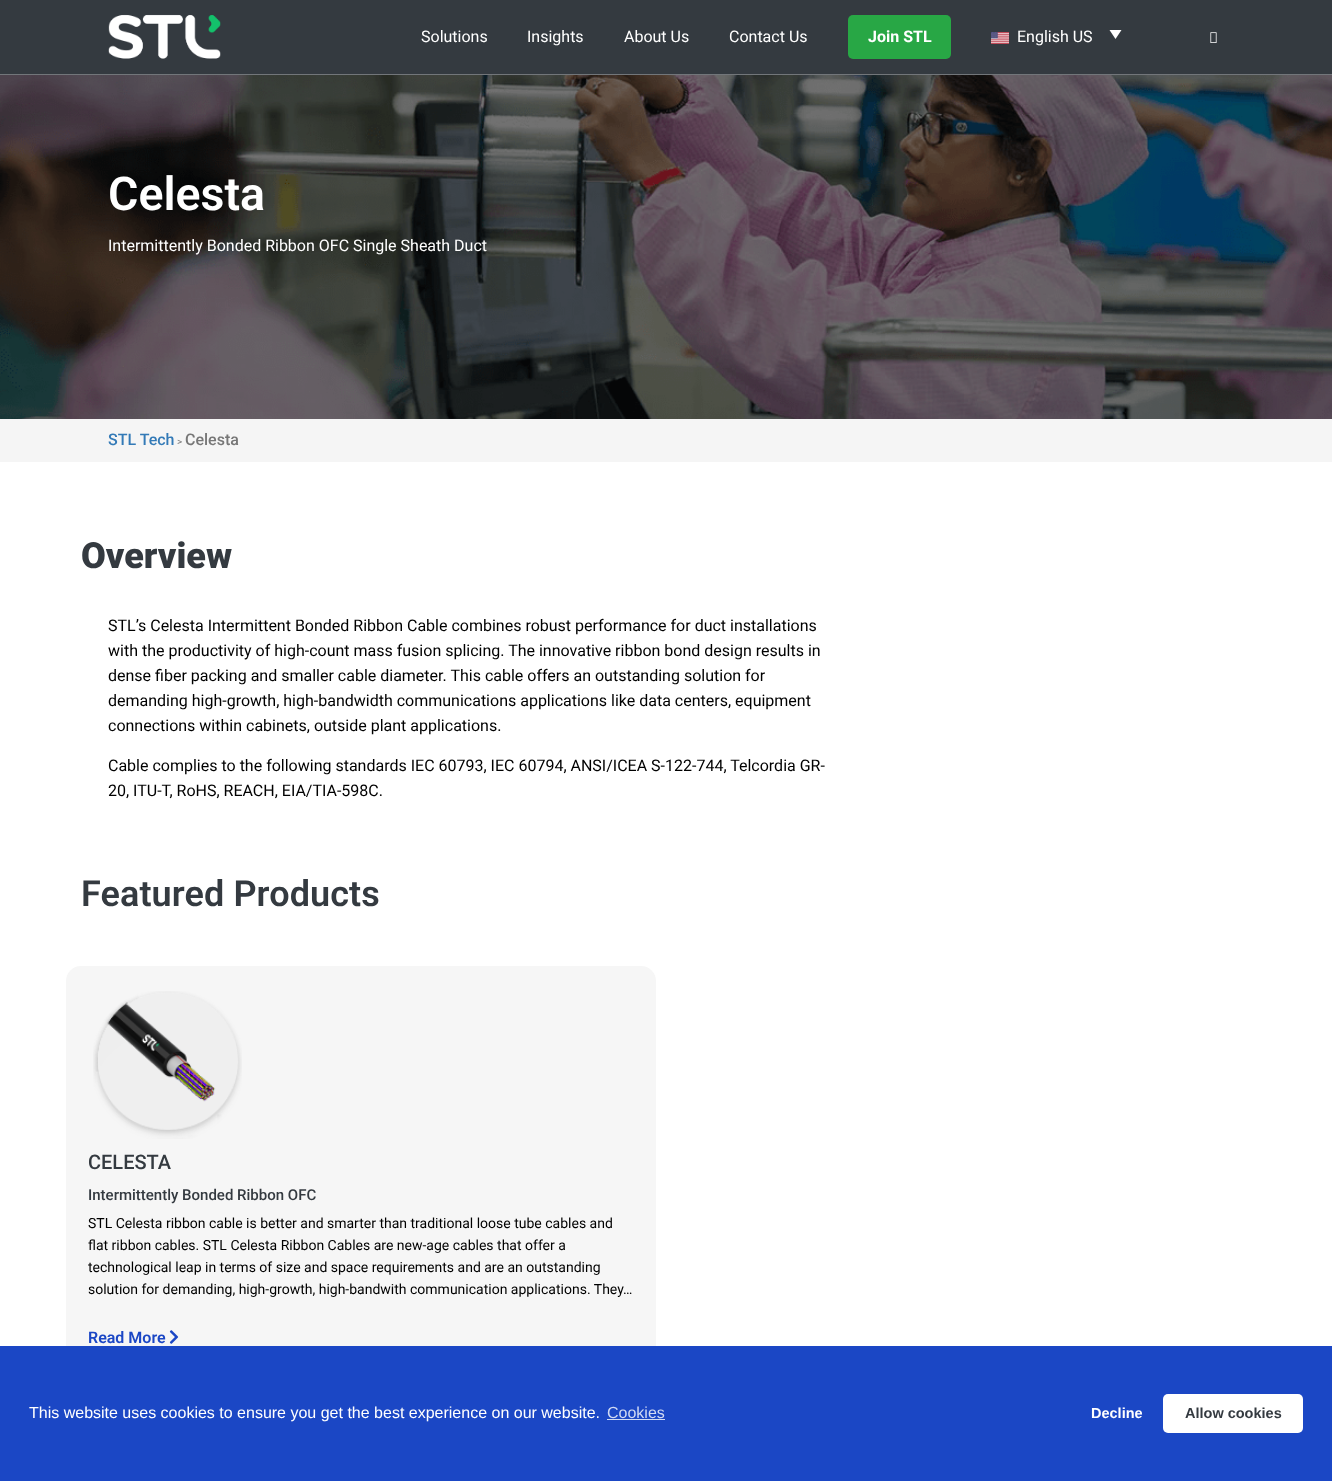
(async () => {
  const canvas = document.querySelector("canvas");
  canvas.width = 1332;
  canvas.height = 1481;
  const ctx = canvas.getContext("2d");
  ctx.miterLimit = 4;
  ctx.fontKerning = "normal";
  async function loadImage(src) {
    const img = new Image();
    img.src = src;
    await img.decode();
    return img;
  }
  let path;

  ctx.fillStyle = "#ffffff";
  ctx.fillRect(0, 0, 1332, 1481);
  ctx.fillStyle = "#343a40";
  ctx.fillRect(0, 0, 1332, 74);
  ctx.fillStyle = "#72767a";
  ctx.fillRect(0, 74, 1332, 1);
  ctx.drawImage(await loadImage("img/1.png"), 108, 14, 113, 45);
  ctx.fillStyle = "#28a745";
  ctx.beginPath();
  ctx.roundRect(848, 15, 103, 44, 5);
  ctx.fill();
  ctx.drawImage(await loadImage("img/2.png"), 991, 32, 18, 12);
  ctx.fillStyle = "#ffffff";
  path = new Path2D("M1121.5 30L1115.5 39L1109.5 30Z");
  ctx.fill(path);
  ctx.drawImage(await loadImage("img/3.png"), 1210, 32, 7, 11);
  ctx.drawImage(await loadImage("img/4.png"), 0, 75, 1332, 344);
  ctx.fillStyle = "#f5f5f5";
  ctx.fillRect(0, 419, 1332, 43);
  ctx.fillStyle = "#f6f6f6";
  ctx.beginPath();
  ctx.roundRect(66, 966, 590, 405, 15);
  ctx.fill();
  ctx.drawImage(await loadImage("img/5.png"), 93, 991, 149, 148);
  ctx.drawImage(await loadImage("img/6.png"), 169, 1330, 10, 14);
  ctx.fillStyle = "#1b47c5";
  ctx.fillRect(0, 1346, 1332, 135);
  ctx.fillStyle = "#d1daf3";
  ctx.fillRect(607, 1419, 58, 1);
  ctx.fillStyle = "#ffffff";
  ctx.beginPath();
  ctx.roundRect(1163, 1394, 140, 39, 5);
  ctx.fill();
  ctx.font = "16px Roboto";
  for (const [text, x, y] of [
    ["Solutions", 421, 42],
    ["Insights", 527, 42],
    ["About Us", 624, 42],
    ["Contact Us", 729, 42],
  ]) {
    ctx.fillText(text, x, y);
  }
  ctx.font = "bold 16px Roboto";
  ctx.fillText("Join STL", 868, 42);
  ctx.font = "16px Roboto";
  ctx.fillText("English US", 1017, 42);
  ctx.font = "600 46.5px Roboto";
  ctx.fillText("Celesta", 108, 210);
  ctx.font = "16px Roboto";
  ctx.fillText("Intermittently Bonded Ribbon OFC Single Sheath Duct", 108, 251);
  ctx.font = "500 16px Roboto";
  ctx.fillStyle = "#337ab7";
  ctx.fillText("STL Tech", 108, 445);
  ctx.font = "10px Roboto";
  ctx.fillStyle = "#777777";
  ctx.fillText(">", 177, 445);
  ctx.font = "500 16px Roboto";
  ctx.fillText("Celesta", 185, 445);
  ctx.font = "900 36px Roboto";
  ctx.fillStyle = "#343a40";
  ctx.fillText("Overview", 81, 568);
  ctx.font = "16px Roboto";
  ctx.fillStyle = "#000000";
  for (const [text, x, y] of [
    ["STL’s Celesta Intermittent Bonded Ribbon Cable combines robust performance for duct installations", 108, 631],
    ["with the productivity of high-count mass fusion splicing. The innovative ribbon bond design results in", 108, 656],
    ["dense fiber packing and smaller cable diameter. This cable offers an outstanding solution for", 108, 681],
    ["demanding high-growth, high-bandwidth communications applications like data centers, equipment", 108, 706],
    ["connections within cabinets, outside plant applications.", 108, 731],
    ["Cable complies to the following standards IEC 60793, IEC 60794, ANSI/ICEA S-122-744, Telcordia GR-", 108, 771],
    ["20, ITU-T, RoHS, REACH, EIA/TIA-598C.", 108, 796],
  ]) {
    ctx.fillText(text, x, y);
  }
  ctx.letterSpacing = "0.1px";
  ctx.font = "600 36px Roboto";
  ctx.fillStyle = "#343a40";
  ctx.fillText("Featured Products", 81, 906);
  ctx.letterSpacing = "0px";
  ctx.font = "500 20px Roboto";
  ctx.fillText("CELESTA", 88, 1169);
  ctx.font = "500 15px Roboto";
  ctx.fillText("Intermittently Bonded Ribbon OFC", 88, 1200);
  ctx.font = "14px Roboto";
  ctx.fillStyle = "#000000";
  for (const [text, x, y] of [
    ["STL Celesta ribbon cable is better and smarter than traditional loose tube cables and", 88, 1228],
    ["flat ribbon cables. STL Celesta Ribbon Cables are new-age cables that offer a", 88, 1250],
    ["technological leap in terms of size and space requirements and are an outstanding", 88, 1272],
    ["solution for demanding, high-growth, high-bandwith communication applications. They…", 88, 1294],
  ]) {
    ctx.fillText(text, x, y);
  }
  ctx.font = "600 16px Roboto";
  ctx.fillStyle = "#1b47c5";
  ctx.fillText("Read More", 88, 1343);
  ctx.font = "16px Liberation Sans";
  ctx.fillStyle = "#ffffff";
  ctx.fillText("This website uses cookies to ensure you get the best experience on our website.", 29, 1418);
  ctx.fillStyle = "#d1daf3";
  ctx.fillText("Cookies", 607, 1418);
  ctx.font = "bold 14.5px Liberation Sans";
  ctx.fillStyle = "#ffffff";
  ctx.fillText("Decline", 1091, 1418);
  ctx.fillStyle = "#343a40";
  ctx.fillText("Allow cookies", 1185, 1418);
})();
